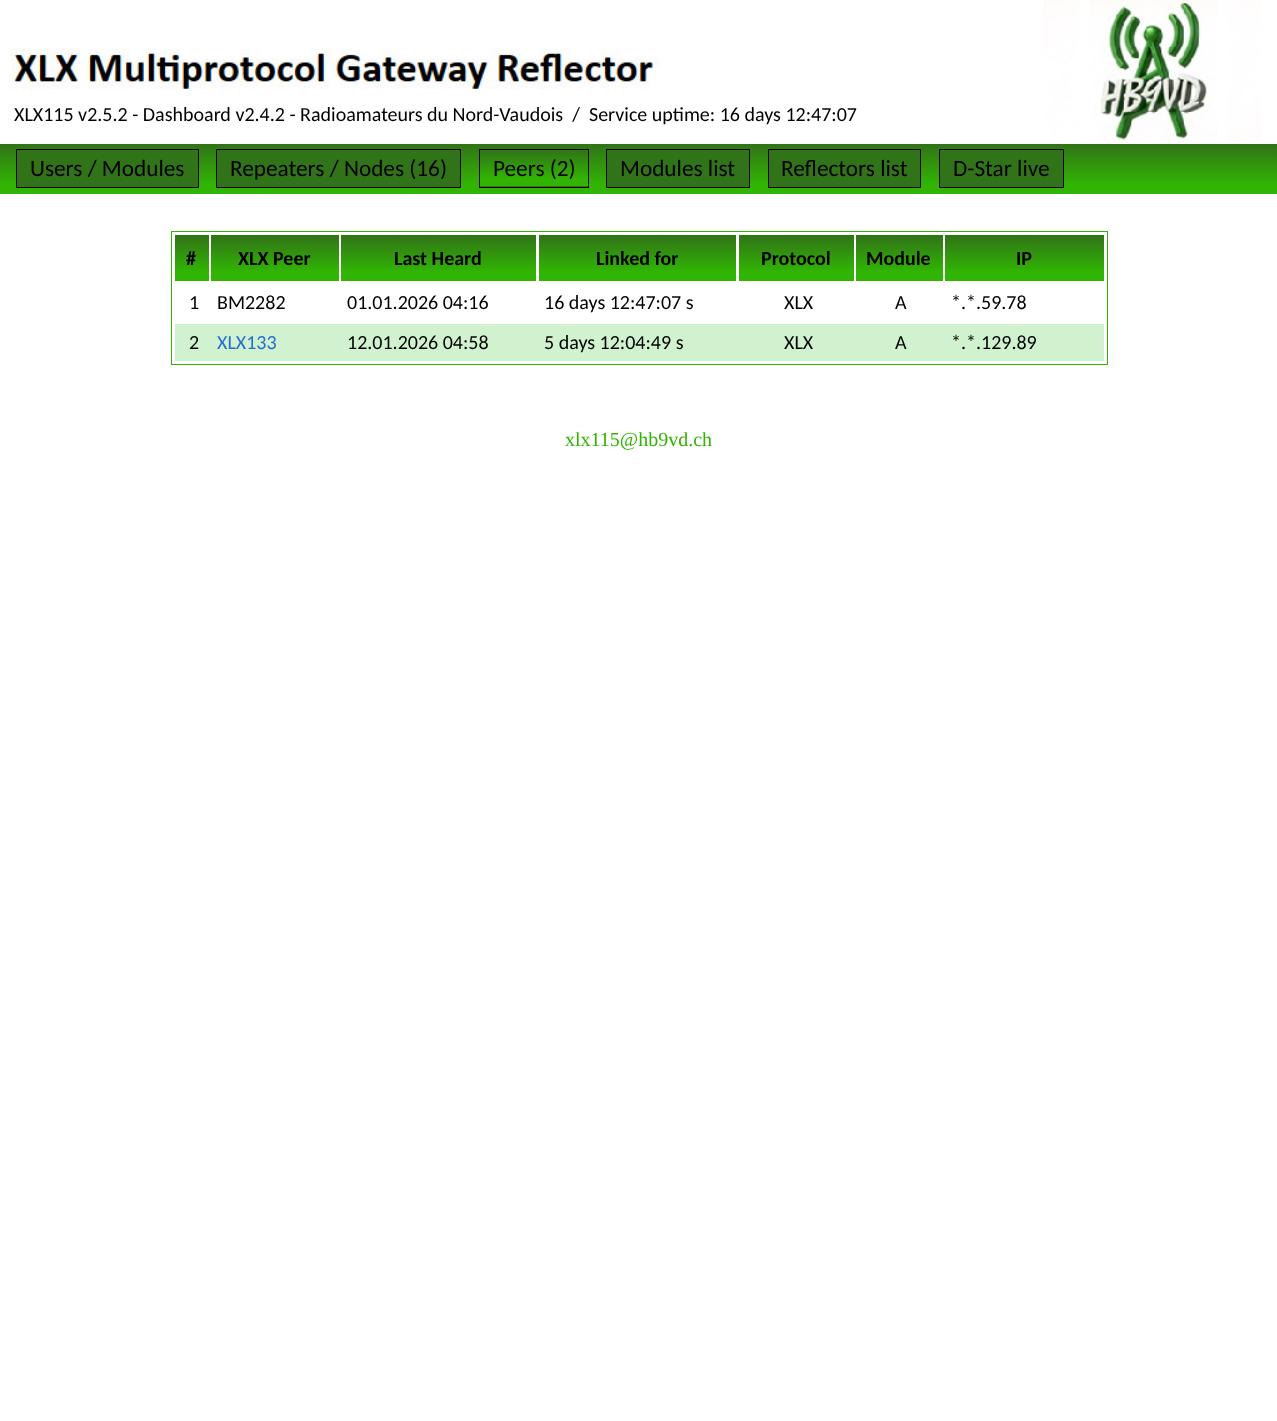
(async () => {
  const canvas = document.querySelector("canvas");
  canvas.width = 1277;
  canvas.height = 1421;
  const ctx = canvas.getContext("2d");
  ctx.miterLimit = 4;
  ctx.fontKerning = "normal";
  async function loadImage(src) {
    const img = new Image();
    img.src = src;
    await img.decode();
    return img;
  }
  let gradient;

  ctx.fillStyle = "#ffffff";
  ctx.fillRect(0, 0, 1277, 1421);
  ctx.drawImage(await loadImage("img/1.png"), 1043, 0, 218, 144);
  ctx.drawImage(await loadImage("img/2.png"), 10, 48, 650, 41);
  gradient = ctx.createLinearGradient(0, 144, 0, 194);
  gradient.addColorStop(0, "#317318");
  gradient.addColorStop(0.8, "#31b404");
  ctx.fillStyle = gradient;
  ctx.fillRect(0, 144, 1277, 50);
  ctx.fillStyle = "#317318";
  ctx.beginPath();
  ctx.rect(16.5, 149.5, 182, 38);
  ctx.fill();
  ctx.strokeStyle = "#000000";
  ctx.stroke();
  ctx.beginPath();
  ctx.rect(216.5, 149.5, 244, 38);
  ctx.fill();
  ctx.stroke();
  gradient = ctx.createLinearGradient(480, 150, 480, 186);
  gradient.addColorStop(0, "#317318");
  gradient.addColorStop(0.8, "#31b404");
  ctx.fillStyle = gradient;
  ctx.fillRect(480, 150, 108, 32);
  gradient = ctx.createLinearGradient(480, 186, 480, 223);
  gradient.addColorStop(0, "#317318");
  gradient.addColorStop(0.8, "#31b404");
  ctx.fillStyle = gradient;
  ctx.fillRect(479, 186, 110, 1);
  ctx.strokeRect(479.5, 149.5, 109, 38);
  ctx.fillStyle = "#317318";
  ctx.beginPath();
  ctx.rect(606.5, 149.5, 143, 38);
  ctx.fill();
  ctx.stroke();
  ctx.beginPath();
  ctx.rect(768.5, 149.5, 152, 38);
  ctx.fill();
  ctx.stroke();
  ctx.beginPath();
  ctx.rect(939.5, 149.5, 124, 38);
  ctx.fill();
  ctx.stroke();
  ctx.strokeStyle = "#31b404";
  ctx.strokeRect(171.5, 231.5, 936, 133);
  gradient = ctx.createLinearGradient(192, 235, 192, 281);
  gradient.addColorStop(0, "#317318");
  gradient.addColorStop(0.8, "#31b404");
  ctx.fillStyle = gradient;
  ctx.fillRect(175, 235, 34, 46);
  gradient = ctx.createLinearGradient(275, 235, 275, 281);
  gradient.addColorStop(0, "#317318");
  gradient.addColorStop(0.8, "#31b404");
  ctx.fillStyle = gradient;
  ctx.fillRect(211, 235, 128, 46);
  gradient = ctx.createLinearGradient(439, 235, 439, 281);
  gradient.addColorStop(0, "#317318");
  gradient.addColorStop(0.8, "#31b404");
  ctx.fillStyle = gradient;
  ctx.fillRect(341, 235, 195, 46);
  gradient = ctx.createLinearGradient(638, 235, 638, 281);
  gradient.addColorStop(0, "#317318");
  gradient.addColorStop(0.8, "#31b404");
  ctx.fillStyle = gradient;
  ctx.fillRect(539, 235, 197, 46);
  gradient = ctx.createLinearGradient(796, 235, 796, 281);
  gradient.addColorStop(0, "#317318");
  gradient.addColorStop(0.8, "#31b404");
  ctx.fillStyle = gradient;
  ctx.fillRect(739, 235, 115, 46);
  gradient = ctx.createLinearGradient(899, 235, 899, 281);
  gradient.addColorStop(0, "#317318");
  gradient.addColorStop(0.8, "#31b404");
  ctx.fillStyle = gradient;
  ctx.fillRect(856, 235, 87, 46);
  gradient = ctx.createLinearGradient(1024, 235, 1024, 281);
  gradient.addColorStop(0, "#317318");
  gradient.addColorStop(0.8, "#31b404");
  ctx.fillStyle = gradient;
  ctx.fillRect(945, 235, 159, 46);
  ctx.fillStyle = "#d0f2ce";
  ctx.fillRect(175, 324, 929, 37);
  ctx.font = "20px Carlito";
  ctx.fillStyle = "#000000";
  ctx.fillText("XLX115 v2.5.2 - Dashboard v2.4.2 - Radioamateurs du Nord-Vaudois  /  Service uptime: 16 days 12:47:07", 14, 121);
  ctx.font = "23.25px Carlito";
  for (const [text, x, y] of [
    ["Users / Modules", 30, 176],
    ["Repeaters / Nodes (16)", 230, 176],
    ["Peers (2)", 493, 176],
    ["Modules list", 620, 176],
    ["Reflectors list", 781, 176],
    ["D-Star live", 953, 176],
  ]) {
    ctx.fillText(text, x, y);
  }
  ctx.font = "bold 20px Carlito";
  for (const [text, x, y] of [
    ["#", 186, 265],
    ["XLX Peer", 238, 265],
    ["Last Heard", 394, 265],
    ["Linked for", 596, 265],
    ["Protocol", 761, 265],
    ["Module", 866, 265],
    ["IP", 1016, 265],
  ]) {
    ctx.fillText(text, x, y);
  }
  ctx.font = "20px Carlito";
  for (const [text, x, y] of [
    ["1", 189, 309],
    ["BM2282", 217, 309],
    ["01.01.2026 04:16", 347, 309],
    ["16 days 12:47:07 s", 544, 309],
    ["XLX", 784, 309],
    ["A", 895, 309],
    ["*.*.59.78", 951, 309],
    ["2", 189, 349],
  ]) {
    ctx.fillText(text, x, y);
  }
  ctx.fillStyle = "#266dd1";
  ctx.fillText("XLX133", 217, 349);
  ctx.fillStyle = "#000000";
  for (const [text, x, y] of [
    ["12.01.2026 04:58", 347, 349],
    ["5 days 12:04:49 s", 544, 349],
    ["XLX", 784, 349],
    ["A", 895, 349],
    ["*.*.129.89", 951, 349],
  ]) {
    ctx.fillText(text, x, y);
  }
  ctx.font = "20px Liberation Serif";
  ctx.fillStyle = "#31b404";
  ctx.fillText("xlx115@hb9vd.ch", 565, 446);
})();
